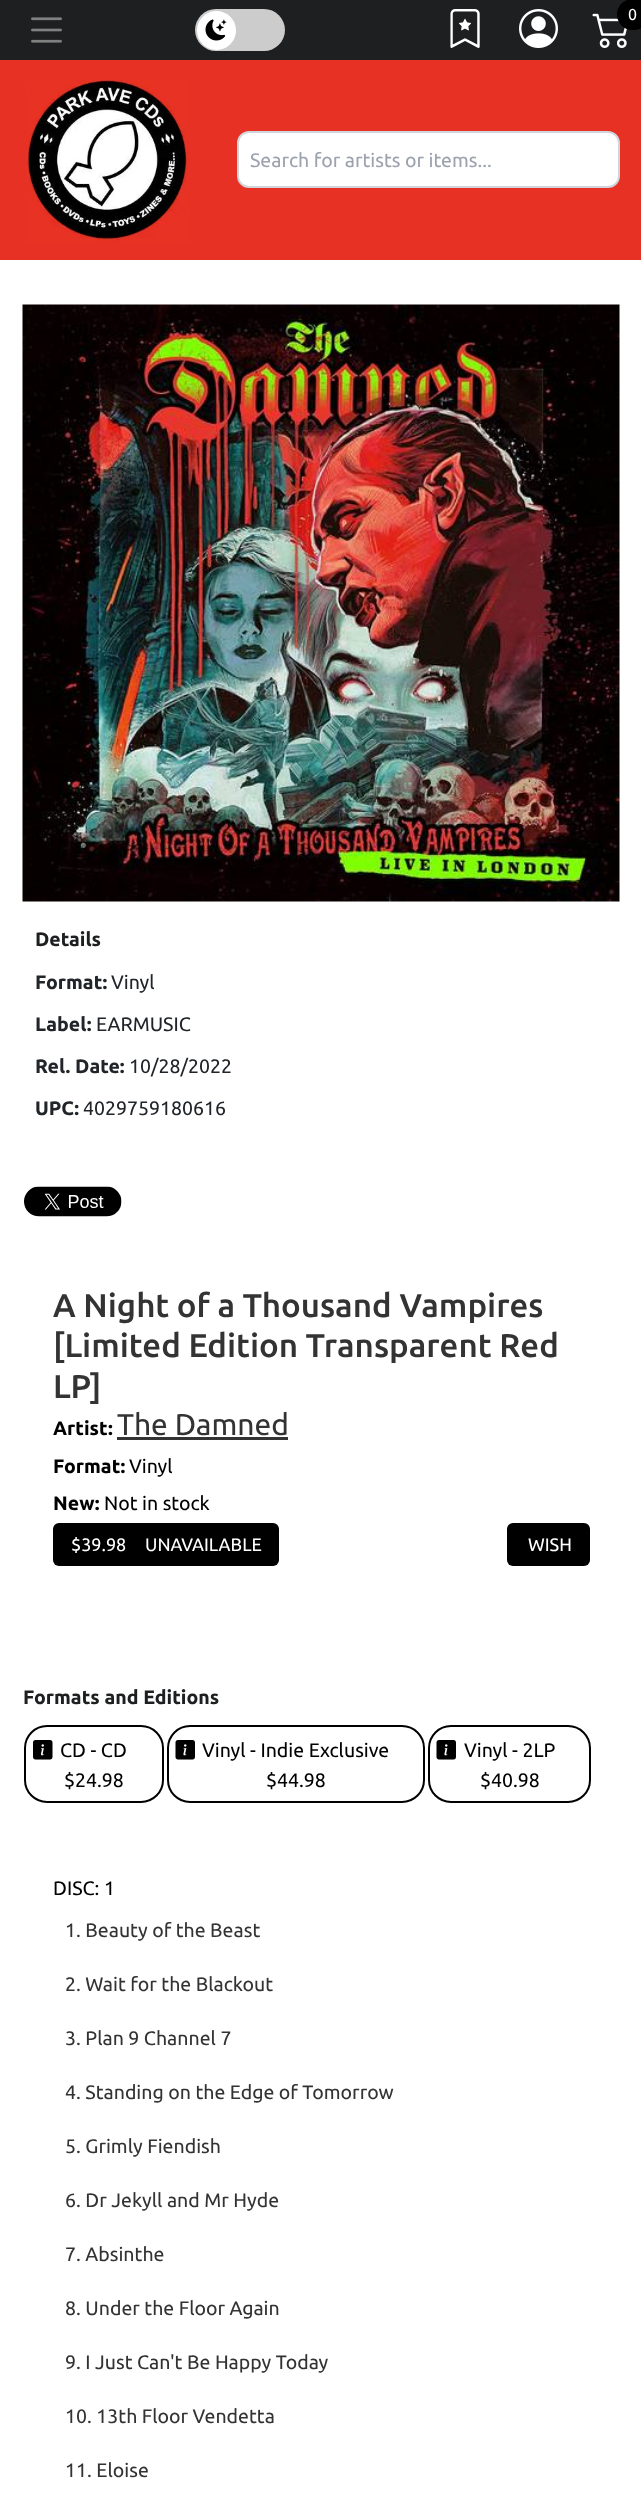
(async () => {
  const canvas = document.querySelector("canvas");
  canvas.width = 641;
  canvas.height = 2504;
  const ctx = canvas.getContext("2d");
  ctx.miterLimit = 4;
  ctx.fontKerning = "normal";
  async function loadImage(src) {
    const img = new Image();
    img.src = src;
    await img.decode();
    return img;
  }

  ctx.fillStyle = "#ffffff";
  ctx.fillRect(0, 0, 641, 2504);
  ctx.fillStyle = "#1d1f20";
  ctx.fillRect(0, 0, 641, 60);
  ctx.drawImage(await loadImage("img/1.png"), 31, 17, 31, 26);
  ctx.fillStyle = "#cccccc";
  ctx.beginPath();
  ctx.roundRect(195, 9, 90, 42, 21);
  ctx.fill();
  ctx.fillStyle = "#ffffff";
  ctx.beginPath();
  ctx.arc(216.5, 30.5, 19.5, 0, Math.PI * 2);
  ctx.fill();
  ctx.drawImage(await loadImage("img/2.png"), 205, 19, 22, 22);
  ctx.drawImage(await loadImage("img/3.png"), 450, 9, 30, 39);
  ctx.drawImage(await loadImage("img/4.png"), 519, 9, 39, 39);
  ctx.drawImage(await loadImage("img/5.png"), 592, 13, 35, 35);
  ctx.fillStyle = "#000000";
  ctx.beginPath();
  ctx.roundRect(617, -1, 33, 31, 15.5);
  ctx.fill();
  ctx.fillStyle = "#e73124";
  ctx.fillRect(0, 60, 641, 200);
  ctx.drawImage(await loadImage("img/6.png"), 27, 80, 163, 163);
  ctx.fillStyle = "#ffffff";
  ctx.beginPath();
  ctx.roundRect(238, 132, 381, 55, 11);
  ctx.fill();
  ctx.strokeStyle = "#d1d5db";
  ctx.lineWidth = 2;
  ctx.stroke();
  ctx.drawImage(await loadImage("img/7.png"), 22, 304, 598, 598);
  ctx.drawImage(await loadImage("img/8.png"), 24, 1186, 98, 31);
  ctx.fillStyle = "#333333";
  ctx.fillRect(117, 1437, 171, 3);
  ctx.fillStyle = "#000000";
  ctx.beginPath();
  ctx.roundRect(53, 1523, 226, 43, 6);
  ctx.fill();
  ctx.beginPath();
  ctx.roundRect(507, 1523, 83, 43, 6);
  ctx.fill();
  ctx.beginPath();
  ctx.roundRect(25, 1726, 138, 76, 22);
  ctx.strokeStyle = "#000000";
  ctx.stroke();
  ctx.drawImage(await loadImage("img/9.png"), 33, 1740, 20, 20);
  ctx.beginPath();
  ctx.roundRect(168, 1726, 256, 76, 22);
  ctx.stroke();
  ctx.drawImage(await loadImage("img/10.png"), 175, 1740, 20, 20);
  ctx.beginPath();
  ctx.roundRect(429, 1726, 161, 76, 22);
  ctx.stroke();
  ctx.drawImage(await loadImage("img/10.png"), 436, 1740, 20, 20);
  ctx.font = "16px Ubuntu";
  ctx.fillStyle = "#ffffff";
  ctx.fillText("0", 628, 20);
  ctx.font = "19.5px Ubuntu";
  ctx.fillStyle = "#9ca3af";
  ctx.fillText("Search for artists or items...", 250, 167);
  ctx.font = "bold 19.5px Ubuntu";
  ctx.fillStyle = "#1d1f20";
  ctx.fillText("Details", 35, 946);
  ctx.fillStyle = "#212529";
  ctx.fillText("Format:", 35, 989);
  ctx.font = "19.5px Ubuntu";
  ctx.fillText("Vinyl", 111, 989);
  ctx.font = "bold 19.5px Ubuntu";
  ctx.fillText("Label:", 35, 1031);
  ctx.font = "19.5px Ubuntu";
  ctx.fillText("EARMUSIC", 96, 1031);
  ctx.font = "bold 19.5px Ubuntu";
  ctx.fillText("Rel. Date:", 35, 1073);
  ctx.font = "19.5px Ubuntu";
  ctx.fillText("10/28/2022", 129, 1073);
  ctx.font = "bold 19.5px Ubuntu";
  ctx.fillText("UPC:", 35, 1115);
  ctx.font = "19.5px Ubuntu";
  ctx.fillText("4029759180616", 83, 1115);
  ctx.font = "500 33px Ubuntu";
  ctx.fillStyle = "#333333";
  for (const [text, x, y] of [
    ["A Night of a Thousand Vampires", 53, 1317],
    ["[Limited Edition Transparent Red", 53, 1357],
    ["LP]", 53, 1398],
  ]) {
    ctx.fillText(text, x, y);
  }
  ctx.font = "bold 19.5px Ubuntu";
  ctx.fillStyle = "#000000";
  ctx.fillText("Artist:", 53, 1435);
  ctx.font = "30px Ubuntu";
  ctx.fillStyle = "#333333";
  ctx.fillText("The Damned", 117, 1435);
  ctx.font = "bold 19.5px Ubuntu";
  ctx.fillStyle = "#000000";
  ctx.fillText("Format:", 53, 1473);
  ctx.font = "19.5px Ubuntu";
  ctx.fillText("Vinyl", 129, 1473);
  ctx.font = "bold 19.5px Ubuntu";
  ctx.fillText("New:", 53, 1510);
  ctx.font = "19.5px Ubuntu";
  ctx.fillText("Not in stock", 104, 1510);
  ctx.font = "18px Ubuntu";
  ctx.fillStyle = "#ffffff";
  for (const [text, x, y] of [
    ["$39.98", 71, 1551],
    ["UNAVAILABLE", 145, 1551],
    ["WISH", 528, 1551],
  ]) {
    ctx.fillText(text, x, y);
  }
  ctx.font = "bold 19.5px Ubuntu";
  ctx.fillStyle = "#1d1f20";
  ctx.fillText("Formats and Editions", 23, 1704);
  ctx.font = "19.5px Ubuntu";
  ctx.fillStyle = "#000000";
  for (const [text, x, y] of [
    ["CD - CD", 60, 1757],
    ["$24.98", 64, 1787],
    ["Vinyl - Indie Exclusive", 202, 1757],
    ["$44.98", 266, 1787],
    ["Vinyl - 2LP", 464, 1757],
    ["$40.98", 480, 1787],
    ["DISC: 1", 53, 1895],
  ]) {
    ctx.fillText(text, x, y);
  }
  ctx.fillStyle = "#333333";
  for (const [text, x, y] of [
    ["1. Beauty of the Beast", 65, 1937],
    ["2. Wait for the Blackout", 65, 1991],
    ["3. Plan 9 Channel 7", 65, 2045],
    ["4. Standing on the Edge of Tomorrow", 65, 2099],
    ["5. Grimly Fiendish", 65, 2153],
    ["6. Dr Jekyll and Mr Hyde", 65, 2207],
    ["7. Absinthe", 65, 2261],
    ["8. Under the Floor Again", 65, 2315],
    ["9. I Just Can't Be Happy Today", 65, 2369],
    ["10. 13th Floor Vendetta", 65, 2423],
    ["11. Eloise", 65, 2477],
  ]) {
    ctx.fillText(text, x, y);
  }
})();
